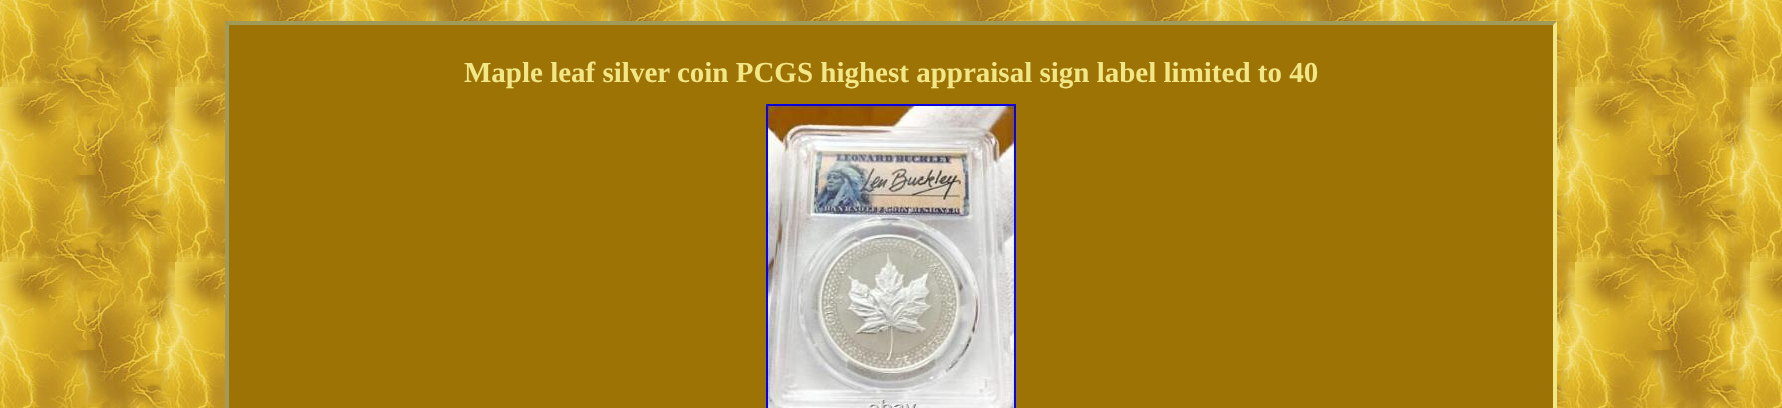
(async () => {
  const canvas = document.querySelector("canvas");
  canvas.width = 1782;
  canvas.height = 408;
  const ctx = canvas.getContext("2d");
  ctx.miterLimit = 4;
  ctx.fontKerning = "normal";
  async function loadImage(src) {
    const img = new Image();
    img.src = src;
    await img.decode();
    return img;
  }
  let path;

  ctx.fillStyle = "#ffffff";
  ctx.fillRect(0, 0, 1782, 408);
  ctx.drawImage(await loadImage("img/1.png"), 0, 0, 1782, 408);
  ctx.fillStyle = "#9d7305";
  ctx.fillRect(225, 21, 1332, 387);
  ctx.fillStyle = "#a19a59";
  path = new Path2D("M225 21H1557L1553 25H229Z");
  ctx.fill(path);
  ctx.fillStyle = "#f1e786";
  path = new Path2D("M1557 21V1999L1553 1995V25Z");
  ctx.fill(path);
  ctx.fillStyle = "#a19a59";
  path = new Path2D("M225 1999V21L229 25V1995Z");
  ctx.fill(path);
  ctx.drawImage(await loadImage("img/2.png"), 766, 104, 250, 304);
  ctx.font = "bold 29px Liberation Serif";
  ctx.fillStyle = "#f1e786";
  ctx.fillText("Maple leaf silver coin PCGS highest appraisal sign label limited to 40", 464, 82);
})();
